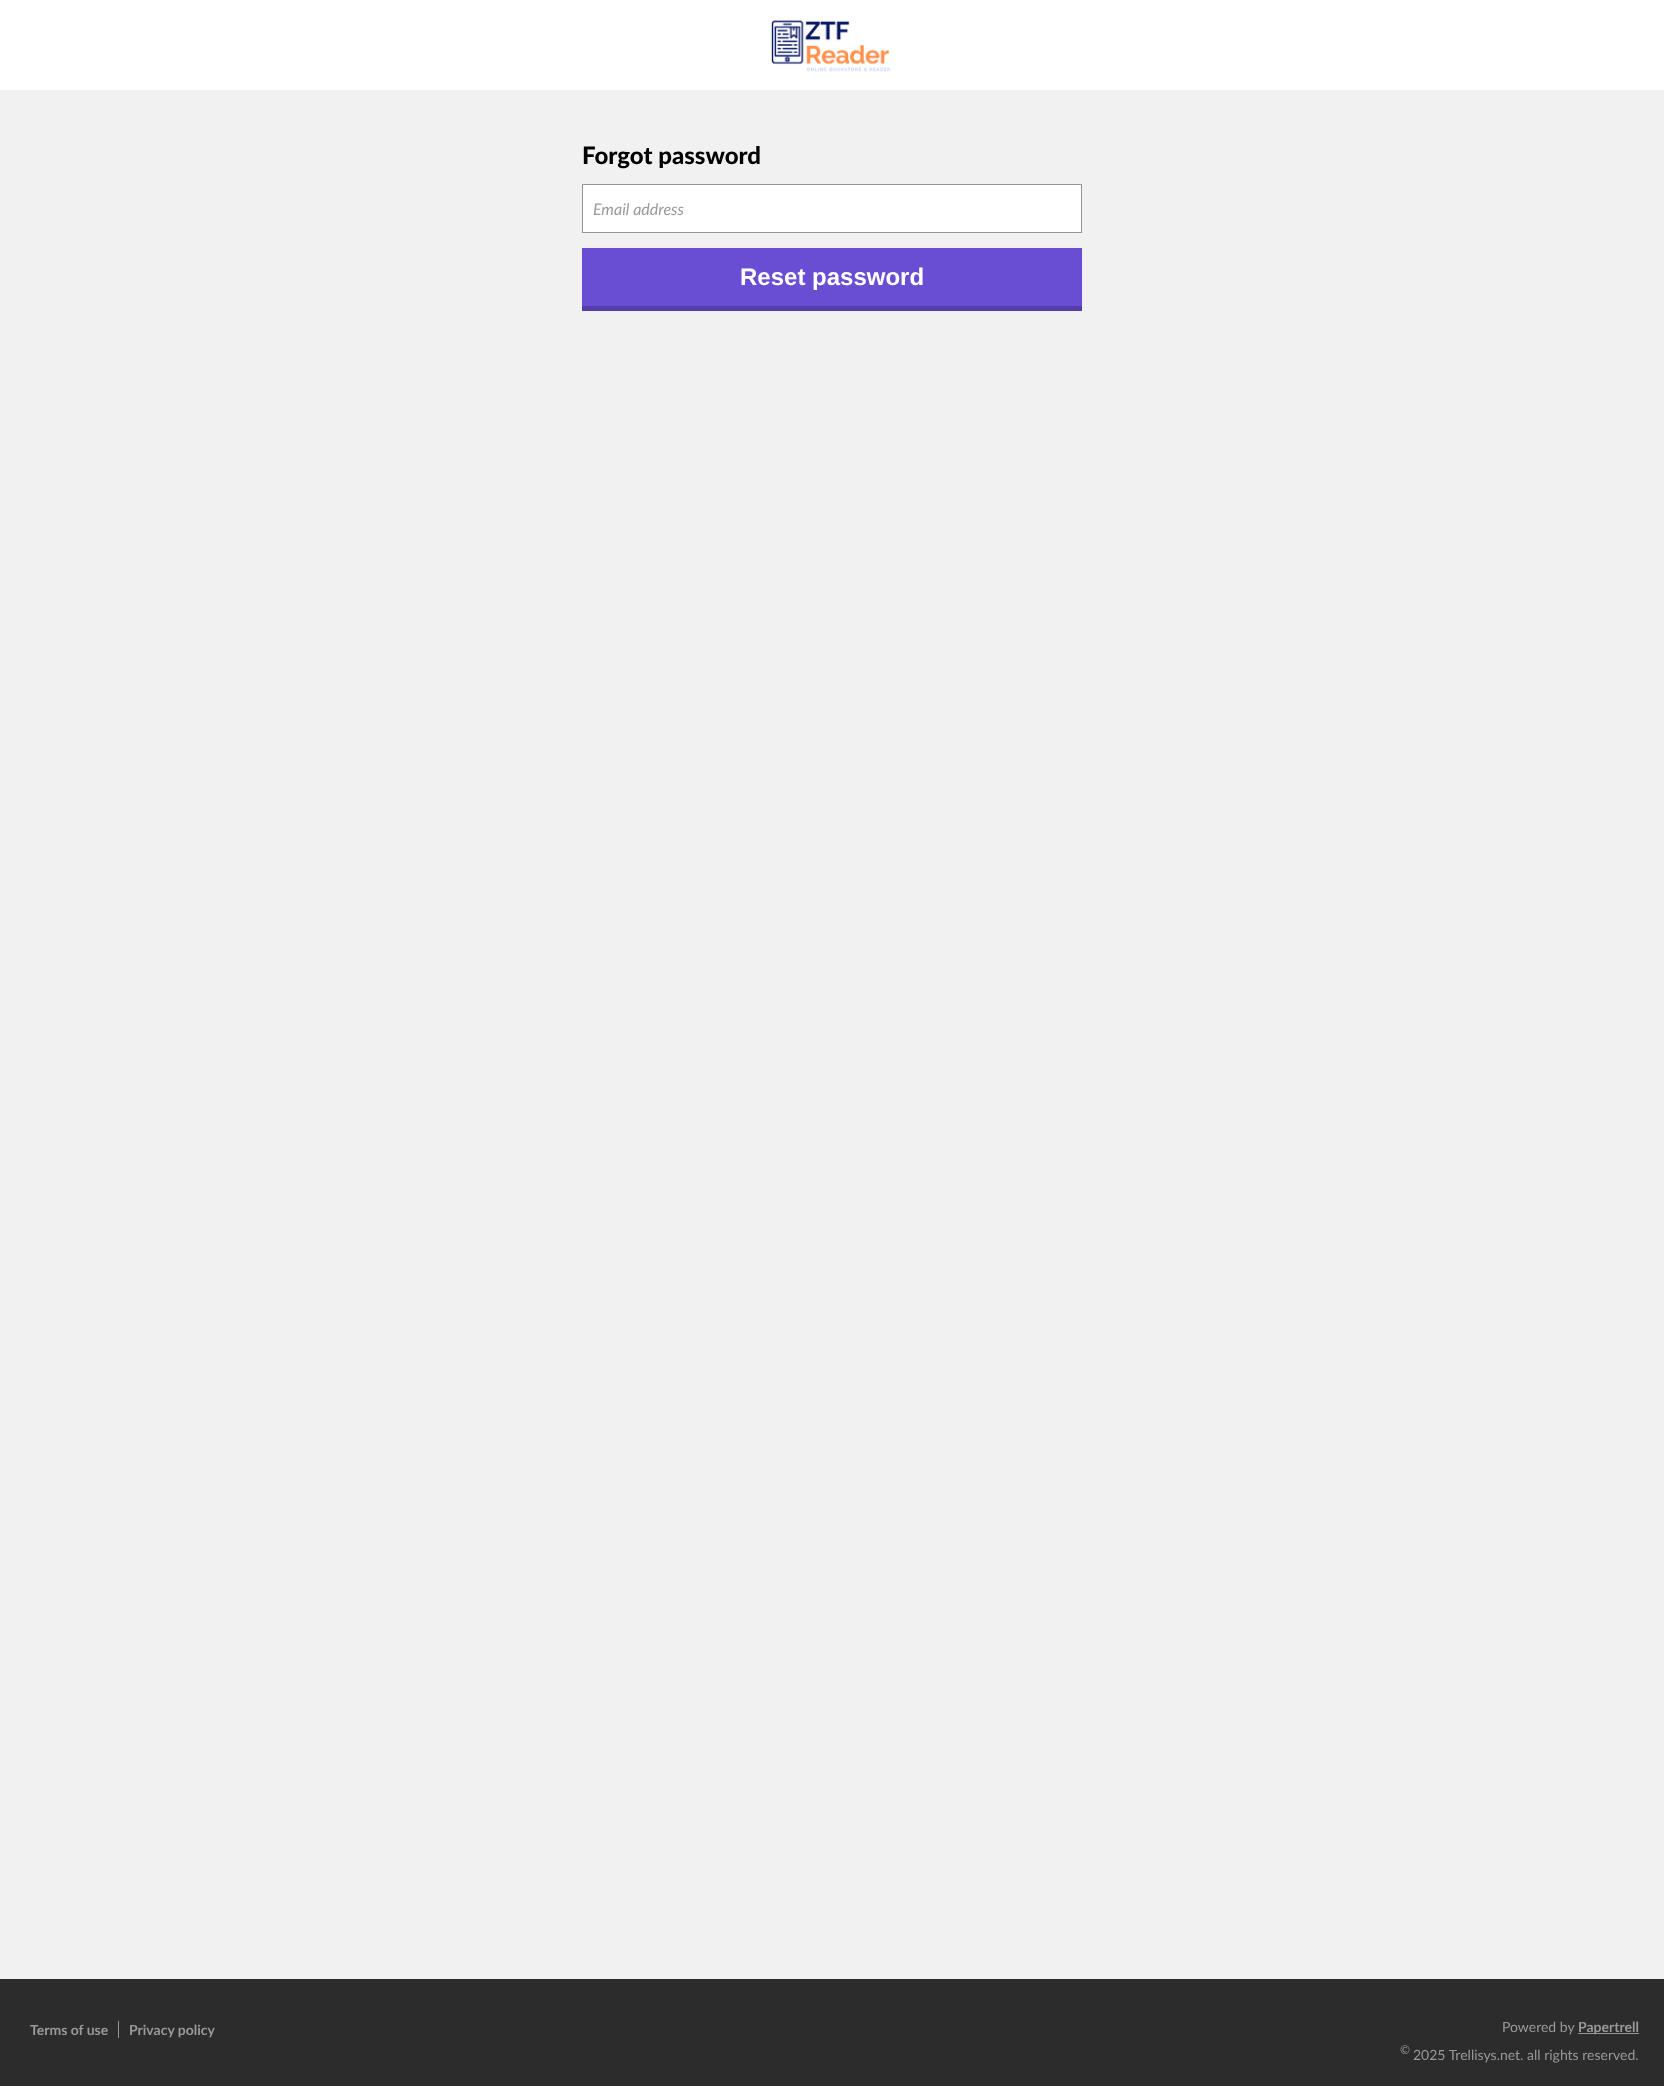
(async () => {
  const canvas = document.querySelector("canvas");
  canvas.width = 1664;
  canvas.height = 2086;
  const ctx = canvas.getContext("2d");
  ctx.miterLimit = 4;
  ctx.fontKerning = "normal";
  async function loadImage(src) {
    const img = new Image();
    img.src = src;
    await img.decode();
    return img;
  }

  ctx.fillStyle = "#f1f1f1";
  ctx.fillRect(0, 0, 1664, 2086);
  ctx.fillStyle = "#ffffff";
  ctx.fillRect(0, 0, 1664, 90);
  ctx.drawImage(await loadImage("img/1.png"), 771, 20, 119, 52);
  for (const [x, y, w, h, color] of [
    [582, 184, 500, 1, "#959595"],
    [1081, 184, 1, 49, "#959595"],
    [582, 184, 1, 49, "#959595"],
    [583, 185, 498, 47, "#ffffff"],
    [583, 232, 498, 1, "#959595"],
    [582, 306, 500, 5, "#543ea9"],
    [582, 248, 500, 58, "#694ed3"],
    [0, 1979, 1664, 107, "#2c2c2c"],
    [0, 1978, 1664, 1, "#eeeef3"],
    [118, 2021, 1, 17, "#959595"],
    [1578, 2033, 61, 1, "#959595"],
  ]) {
    ctx.fillStyle = color;
    ctx.fillRect(x, y, w, h);
  }
  ctx.font = "900 24px Lato";
  ctx.fillStyle = "#000000";
  ctx.fillText("Forgot password", 582, 164);
  ctx.font = "italic 16px Lato";
  ctx.fillStyle = "#999999";
  ctx.fillText("Email address", 593, 215);
  ctx.font = "bold 24px Liberation Sans";
  ctx.fillStyle = "#ffffff";
  ctx.fillText("Reset password", 740, 285);
  ctx.font = "bold 14px Lato";
  ctx.fillStyle = "#999999";
  ctx.fillText("Terms of use", 30, 2035);
  ctx.fillText("Privacy policy", 129, 2035);
  ctx.font = "14px Lato";
  ctx.fillText("Powered by", 1502, 2032);
  ctx.font = "bold 14px Lato";
  ctx.fillText("Papertrell", 1578, 2032);
  ctx.font = "12px Lato";
  ctx.fillText("©", 1400, 2054);
  ctx.font = "14px Lato";
  ctx.fillText("2025 Trellisys.net. all rights reserved.", 1413, 2060);
})();
